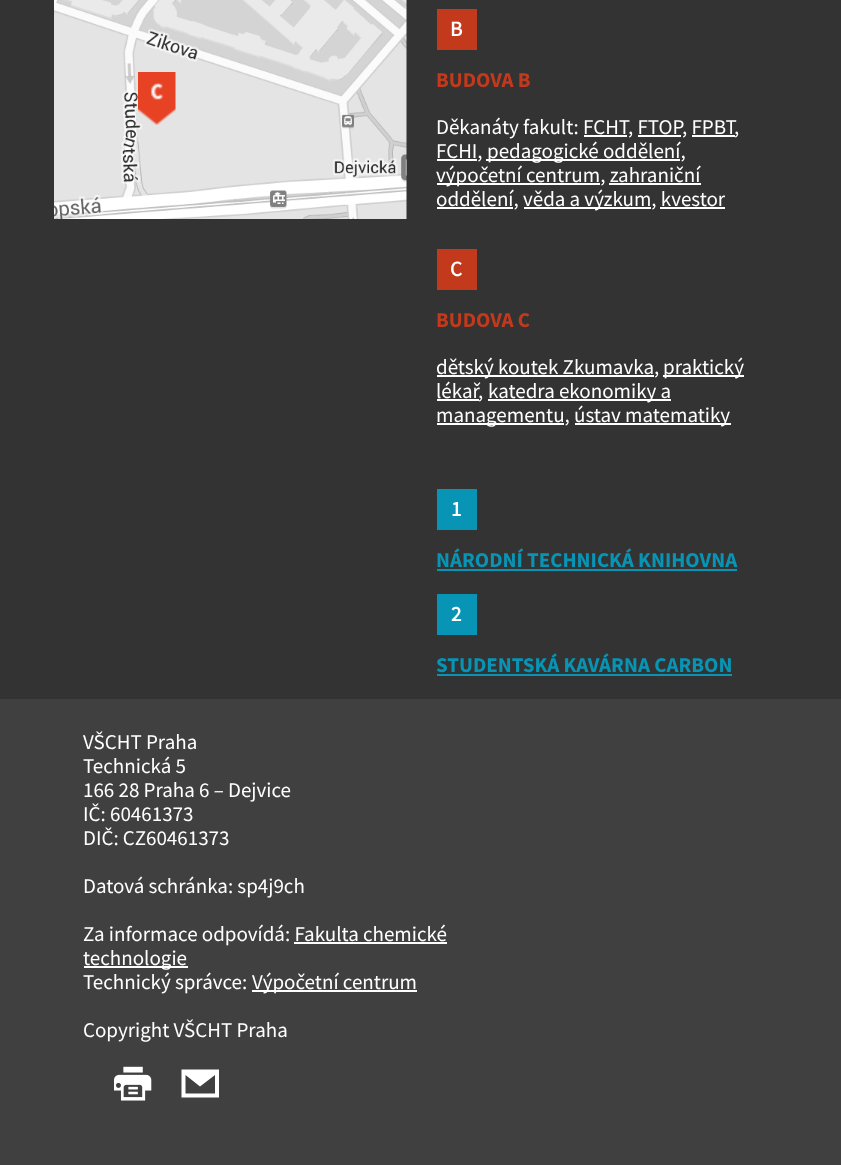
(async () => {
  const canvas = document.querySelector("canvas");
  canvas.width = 841;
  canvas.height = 1165;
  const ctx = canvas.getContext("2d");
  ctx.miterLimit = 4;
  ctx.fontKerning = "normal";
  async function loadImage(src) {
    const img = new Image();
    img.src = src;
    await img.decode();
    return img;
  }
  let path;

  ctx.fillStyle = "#333333";
  ctx.fillRect(0, 0, 841, 1165);
  ctx.drawImage(await loadImage("img/1.png"), 54, 0, 353, 219);
  for (const [x, y, w, h, color] of [
    [437, 9, 40, 41, "#c3391c"],
    [584, 135, 43, 2, "#ffffff"],
    [638, 135, 43, 2, "#ffffff"],
    [692, 135, 43, 2, "#ffffff"],
    [437, 159, 40, 2, "#ffffff"],
    [486, 159, 194, 2, "#ffffff"],
    [437, 183, 163, 2, "#ffffff"],
    [609, 183, 92, 2, "#ffffff"],
    [437, 207, 76, 2, "#ffffff"],
    [524, 207, 127, 2, "#ffffff"],
    [660, 207, 65, 2, "#ffffff"],
    [437, 249, 40, 41, "#c3391c"],
    [437, 375, 217, 2, "#ffffff"],
    [663, 375, 81, 2, "#ffffff"],
    [437, 399, 42, 2, "#ffffff"],
    [488, 399, 183, 2, "#ffffff"],
    [437, 423, 127, 2, "#ffffff"],
    [575, 423, 156, 2, "#ffffff"],
    [437, 489, 40, 41, "#0894b4"],
    [437, 569, 300, 2, "#0894b4"],
    [437, 594, 40, 41, "#0894b4"],
    [437, 674, 295, 2, "#0894b4"],
    [0, 699, 841, 466, "#404040"],
    [294, 942, 153, 2, "#ffffff"],
    [84, 966, 104, 2, "#ffffff"],
    [252, 990, 165, 2, "#ffffff"],
  ]) {
    ctx.fillStyle = color;
    ctx.fillRect(x, y, w, h);
  }
  ctx.drawImage(await loadImage("img/2.png"), 114, 1066, 38, 35);
  path = new Path2D("M181.5 1097.5V1069.5H219V1097.5ZM185.5 1075V1093.5H215V1075L200 1086.5Z");
  ctx.fill(path);
  ctx.font = "bold 21px Source Sans Pro";
  ctx.fillText("B", 450, 36);
  ctx.font = "bold 21px 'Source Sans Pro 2'";
  ctx.fillStyle = "#c3391c";
  ctx.fillText("BUDOVA B", 436, 87);
  ctx.font = "21px Source Sans Pro";
  ctx.fillStyle = "#ffffff";
  for (const [text, x, y] of [
    ["Děkanáty fakult: FCHT", 436, 134],
    [", FTOP", 628, 134],
    [", FPBT", 682, 134],
    [",", 734, 134],
    ["FCHI,", 436, 158],
    ["pedagogické oddělení,", 487, 158],
    ["výpočetní centrum, zahraniční", 436, 182],
    ["oddělení,", 436, 206],
    ["věda a výzkum, kvestor", 523, 206],
  ]) {
    ctx.fillText(text, x, y);
  }
  ctx.font = "bold 21px Source Sans Pro";
  ctx.fillText("C", 450, 276);
  ctx.font = "bold 21px 'Source Sans Pro 2'";
  ctx.fillStyle = "#c3391c";
  ctx.fillText("BUDOVA C", 436, 327);
  ctx.font = "21px Source Sans Pro";
  ctx.fillStyle = "#ffffff";
  for (const [text, x, y] of [
    ["dětský koutek Zkumavka,", 436, 374],
    ["praktický", 663, 374],
    ["lékař", 436, 398],
    ["katedra ekonomiky a", 488, 398],
    [",", 478, 398],
    ["managementu,", 436, 422],
    ["ústav matematiky", 574, 422],
  ]) {
    ctx.fillText(text, x, y);
  }
  ctx.font = "bold 21px Source Sans Pro";
  ctx.fillText("1", 451, 516);
  ctx.font = "bold 21px 'Source Sans Pro 2'";
  ctx.fillStyle = "#0894b4";
  ctx.fillText("NÁRODNÍ TECHNICKÁ KNIHOVNA", 436, 567);
  ctx.font = "bold 21px Source Sans Pro";
  ctx.fillStyle = "#ffffff";
  ctx.fillText("2", 451, 621);
  ctx.font = "bold 21px 'Source Sans Pro 2'";
  ctx.fillStyle = "#0894b4";
  ctx.fillText("STUDENTSKÁ KAVÁRNA CARBON", 436, 672);
  ctx.font = "21px Source Sans Pro";
  ctx.fillStyle = "#ffffff";
  for (const [text, x, y] of [
    ["VŠCHT Praha", 83, 749],
    ["Technická 5", 83, 773],
    ["166 28 Praha 6 – Dejvice", 83, 797],
    ["IČ: 60461373", 83, 821],
    ["DIČ: CZ60461373", 83, 845],
    ["Datová schránka: sp4j9ch", 83, 893],
    ["Za informace odpovídá: Fakulta chemické", 83, 941],
    ["technologie", 83, 965],
    ["Technický správce:", 83, 989],
    ["Výpočetní centrum", 252, 989],
    ["Copyright VŠCHT Praha", 83, 1037],
  ]) {
    ctx.fillText(text, x, y);
  }
})();
